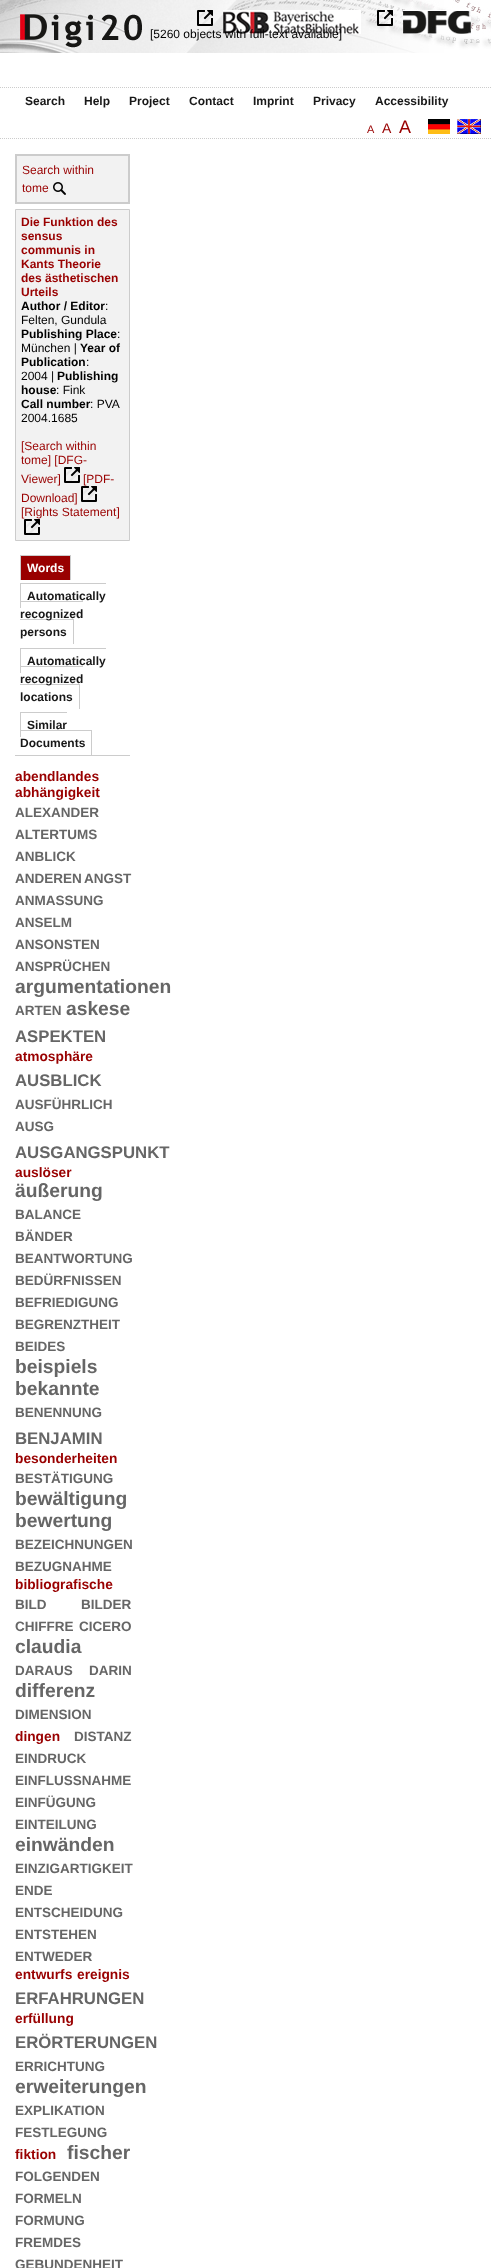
(async () => {
  const canvas = document.querySelector("canvas");
  canvas.width = 492;
  canvas.height = 2268;
  const ctx = canvas.getContext("2d");
  ctx.miterLimit = 4;
  ctx.fontKerning = "normal";
  async function loadImage(src) {
    const img = new Image();
    img.src = src;
    await img.decode();
    return img;
  }
  let path;

  ctx.fillStyle = "#ffffff";
  ctx.fillRect(0, 0, 492, 2268);
  ctx.drawImage(await loadImage("img/1.png"), 0, 0, 491, 53);
  ctx.drawImage(await loadImage("img/2.png"), 223, 10, 138, 24);
  ctx.drawImage(await loadImage("img/3.png"), 197, 10, 16, 16);
  ctx.drawImage(await loadImage("img/4.png"), 403, 10, 68, 24);
  ctx.drawImage(await loadImage("img/5.png"), 377, 10, 16, 16);
  path = new Path2D("M0 87.5H491");
  ctx.strokeStyle = "#cccccc";
  ctx.setLineDash([1, 1]);
  ctx.stroke(path);
  path = new Path2D("M0 138.5H491");
  ctx.stroke(path);
  ctx.drawImage(await loadImage("img/6.png"), 428, 119, 22, 15);
  ctx.drawImage(await loadImage("img/7.png"), 457, 119, 24, 15);
  ctx.fillStyle = "#f2f2f2";
  ctx.beginPath();
  ctx.rect(16, 155, 113, 48);
  ctx.fill();
  ctx.lineWidth = 2;
  ctx.setLineDash([]);
  ctx.stroke();
  ctx.drawImage(await loadImage("img/8.png"), 53, 182, 13, 13);
  ctx.beginPath();
  ctx.rect(15.5, 209.5, 114, 331);
  ctx.fill();
  ctx.lineWidth = 1;
  ctx.stroke();
  ctx.drawImage(await loadImage("img/9.png"), 64, 467, 16, 16);
  ctx.drawImage(await loadImage("img/9.png"), 81, 486, 16, 16);
  ctx.drawImage(await loadImage("img/9.png"), 24, 519, 16, 16);
  for (const [x, y, w, h, color] of [
    [15, 755, 115, 1, "#cccccc"],
    [21, 556, 49, 24, "#990000"],
    [20, 555, 51, 1, "#cccccc"],
    [70, 555, 1, 25, "#cccccc"],
    [20, 555, 1, 25, "#cccccc"],
    [20, 583, 86, 1, "#cccccc"],
    [20, 583, 1, 25, "#cccccc"],
    [20, 601, 63, 1, "#cccccc"],
    [20, 619, 54, 1, "#cccccc"],
    [73, 619, 1, 25, "#cccccc"],
    [20, 648, 86, 1, "#cccccc"],
    [20, 648, 1, 25, "#cccccc"],
    [20, 666, 63, 1, "#cccccc"],
    [20, 684, 60, 1, "#cccccc"],
    [79, 684, 1, 25, "#cccccc"],
    [20, 712, 47, 1, "#cccccc"],
    [20, 712, 1, 25, "#cccccc"],
    [20, 730, 72, 1, "#cccccc"],
    [91, 730, 1, 25, "#cccccc"],
  ]) {
    ctx.fillStyle = color;
    ctx.fillRect(x, y, w, h);
  }
  ctx.font = "12px Liberation Sans";
  ctx.fillStyle = "#000000";
  ctx.fillText("[5260 objects with full-text available]", 150, 38);
  ctx.font = "bold 12px Liberation Sans";
  ctx.fillStyle = "#181818";
  for (const [text, x, y] of [
    ["Search", 25, 105],
    ["Help", 84, 105],
    ["Project", 129, 105],
    ["Contact", 189, 105],
    ["Imprint", 253, 105],
    ["Privacy", 313, 105],
    ["Accessibility", 375, 105],
  ]) {
    ctx.fillText(text, x, y);
  }
  ctx.font = "11px Liberation Sans";
  ctx.fillStyle = "#990000";
  ctx.fillText("A", 367, 133);
  ctx.font = "14px Liberation Sans";
  ctx.fillText("A", 382, 133);
  ctx.font = "18px Liberation Sans";
  ctx.fillText("A", 399, 133);
  ctx.font = "12px Liberation Sans";
  ctx.fillText("Search within", 22, 174);
  ctx.fillText("tome", 22, 192);
  ctx.font = "bold 12px Liberation Sans";
  for (const [text, x, y] of [
    ["Die Funktion des", 21, 226],
    ["sensus", 21, 240],
    ["communis in", 21, 254],
    ["Kants Theorie", 21, 268],
    ["des ästhetischen", 21, 282],
    ["Urteils", 21, 296],
  ]) {
    ctx.fillText(text, x, y);
  }
  ctx.fillStyle = "#000000";
  ctx.fillText("Author / Editor", 21, 310);
  ctx.font = "12px Liberation Sans";
  ctx.fillText(":", 105, 310);
  ctx.fillText("Felten, Gundula", 21, 324);
  ctx.font = "bold 12px Liberation Sans";
  ctx.fillText("Publishing Place", 21, 338);
  ctx.font = "12px Liberation Sans";
  ctx.fillText(":", 117, 338);
  ctx.fillText("München |", 21, 352);
  ctx.font = "bold 12px Liberation Sans";
  ctx.fillText("Year of", 80, 352);
  ctx.fillText("Publication", 21, 366);
  ctx.font = "12px Liberation Sans";
  ctx.fillText(":", 86, 366);
  ctx.fillText("2004 |", 21, 380);
  ctx.font = "bold 12px Liberation Sans";
  ctx.fillText("Publishing", 57, 380);
  ctx.fillText("house", 21, 394);
  ctx.font = "12px Liberation Sans";
  ctx.fillText(": Fink", 56, 394);
  ctx.font = "bold 12px Liberation Sans";
  ctx.fillText("Call number", 21, 408);
  ctx.font = "12px Liberation Sans";
  ctx.fillText(": PVA", 90, 408);
  ctx.fillText("2004.1685", 21, 422);
  ctx.fillStyle = "#990000";
  for (const [text, x, y] of [
    ["[Search within", 21, 450],
    ["tome] [DFG-", 21, 464],
    ["Viewer]", 21, 483],
    ["[PDF-", 83, 483],
    ["Download]", 21, 502],
    ["[Rights Statement]", 21, 516],
  ]) {
    ctx.fillText(text, x, y);
  }
  ctx.font = "bold 12px Liberation Sans";
  ctx.fillStyle = "#ffffff";
  ctx.fillText("Words", 27, 572);
  ctx.fillStyle = "#181818";
  for (const [text, x, y] of [
    ["Automatically", 27, 600],
    ["recognized", 20, 618],
    ["persons", 20, 636],
    ["Automatically", 27, 665],
    ["recognized", 20, 683],
    ["locations", 20, 701],
    ["Similar", 27, 729],
    ["Documents", 20, 747],
  ]) {
    ctx.fillText(text, x, y);
  }
  ctx.font = "bold 13.75px Liberation Sans";
  ctx.fillStyle = "#990000";
  ctx.fillText("abendlandes", 15, 781);
  ctx.fillText("abhängigkeit", 15, 797);
  ctx.font = "bold 13.5px Liberation Sans";
  ctx.fillStyle = "#666666";
  for (const [text, x, y] of [
    ["ALEXANDER", 15, 817],
    ["ALTERTUMS", 15, 839],
    ["ANBLICK", 15, 861],
    ["ANDEREN", 15, 883],
    ["ANGST", 84, 883],
    ["ANMASSUNG", 15, 905],
    ["ANSELM", 15, 927],
    ["ANSONSTEN", 15, 949],
    ["ANSPRÜCHEN", 15, 971],
  ]) {
    ctx.fillText(text, x, y);
  }
  ctx.font = "bold 19.25px Liberation Sans";
  ctx.fillText("argumentationen", 15, 993);
  ctx.font = "bold 13.5px Liberation Sans";
  ctx.fillText("ARTEN", 15, 1015);
  ctx.font = "bold 19.25px Liberation Sans";
  ctx.fillText("askese", 66, 1015);
  ctx.font = "bold 16.75px Liberation Sans";
  ctx.fillText("ASPEKTEN", 15, 1042);
  ctx.font = "bold 13.75px Liberation Sans";
  ctx.fillStyle = "#990000";
  ctx.fillText("atmosphäre", 15, 1061);
  ctx.font = "bold 16.75px Liberation Sans";
  ctx.fillStyle = "#666666";
  ctx.fillText("AUSBLICK", 15, 1086);
  ctx.font = "bold 13.5px Liberation Sans";
  ctx.fillText("AUSFÜHRLICH", 15, 1109);
  ctx.fillText("AUSG", 15, 1131);
  ctx.font = "bold 16.75px Liberation Sans";
  ctx.fillText("AUSGANGSPUNKT", 15, 1158);
  ctx.font = "bold 13.75px Liberation Sans";
  ctx.fillStyle = "#990000";
  ctx.fillText("auslöser", 15, 1177);
  ctx.font = "bold 19.25px Liberation Sans";
  ctx.fillStyle = "#666666";
  ctx.fillText("äußerung", 15, 1197);
  ctx.font = "bold 13.5px Liberation Sans";
  for (const [text, x, y] of [
    ["BALANCE", 15, 1219],
    ["BÄNDER", 15, 1241],
    ["BEANTWORTUNG", 15, 1263],
    ["BEDÜRFNISSEN", 15, 1285],
    ["BEFRIEDIGUNG", 15, 1307],
    ["BEGRENZTHEIT", 15, 1329],
    ["BEIDES", 15, 1351],
  ]) {
    ctx.fillText(text, x, y);
  }
  ctx.font = "bold 19.25px Liberation Sans";
  ctx.fillText("beispiels", 15, 1373);
  ctx.fillText("bekannte", 15, 1395);
  ctx.font = "bold 13.5px Liberation Sans";
  ctx.fillText("BENENNUNG", 15, 1417);
  ctx.font = "bold 16.75px Liberation Sans";
  ctx.fillText("BENJAMIN", 15, 1444);
  ctx.font = "bold 13.75px Liberation Sans";
  ctx.fillStyle = "#990000";
  ctx.fillText("besonderheiten", 15, 1463);
  ctx.font = "bold 13.5px Liberation Sans";
  ctx.fillStyle = "#666666";
  ctx.fillText("BESTÄTIGUNG", 15, 1483);
  ctx.font = "bold 19.25px Liberation Sans";
  ctx.fillText("bewältigung", 15, 1505);
  ctx.fillText("bewertung", 15, 1527);
  ctx.font = "bold 13.5px Liberation Sans";
  ctx.fillText("BEZEICHNUNGEN", 15, 1549);
  ctx.fillText("BEZUGNAHME", 15, 1571);
  ctx.font = "bold 13.75px Liberation Sans";
  ctx.fillStyle = "#990000";
  ctx.fillText("bibliografische", 15, 1589);
  ctx.font = "bold 13.5px Liberation Sans";
  ctx.fillStyle = "#666666";
  for (const [text, x, y] of [
    ["BILD", 15, 1609],
    ["BILDER", 81, 1609],
    ["CHIFFRE", 15, 1631],
    ["CICERO", 79, 1631],
  ]) {
    ctx.fillText(text, x, y);
  }
  ctx.font = "bold 19.25px Liberation Sans";
  ctx.fillText("claudia", 15, 1653);
  ctx.font = "bold 13.5px Liberation Sans";
  ctx.fillText("DARAUS", 15, 1675);
  ctx.fillText("DARIN", 89, 1675);
  ctx.font = "bold 19.25px Liberation Sans";
  ctx.fillText("differenz", 15, 1697);
  ctx.font = "bold 13.5px Liberation Sans";
  ctx.fillText("DIMENSION", 15, 1719);
  ctx.font = "bold 13.75px Liberation Sans";
  ctx.fillStyle = "#990000";
  ctx.fillText("dingen", 15, 1741);
  ctx.font = "bold 13.5px Liberation Sans";
  ctx.fillStyle = "#666666";
  for (const [text, x, y] of [
    ["DISTANZ", 74, 1741],
    ["EINDRUCK", 15, 1763],
    ["EINFLUSSNAHME", 15, 1785],
    ["EINFÜGUNG", 15, 1807],
    ["EINTEILUNG", 15, 1829],
  ]) {
    ctx.fillText(text, x, y);
  }
  ctx.font = "bold 19.25px Liberation Sans";
  ctx.fillText("einwänden", 15, 1851);
  ctx.font = "bold 13.5px Liberation Sans";
  for (const [text, x, y] of [
    ["EINZIGARTIGKEIT", 15, 1873],
    ["ENDE", 15, 1895],
    ["ENTSCHEIDUNG", 15, 1917],
    ["ENTSTEHEN", 15, 1939],
    ["ENTWEDER", 15, 1961],
  ]) {
    ctx.fillText(text, x, y);
  }
  ctx.font = "bold 13.75px Liberation Sans";
  ctx.fillStyle = "#990000";
  ctx.fillText("entwurfs", 15, 1979);
  ctx.fillText("ereignis", 77, 1979);
  ctx.font = "bold 16.75px Liberation Sans";
  ctx.fillStyle = "#666666";
  ctx.fillText("ERFAHRUNGEN", 15, 2004);
  ctx.font = "bold 13.75px Liberation Sans";
  ctx.fillStyle = "#990000";
  ctx.fillText("erfüllung", 15, 2023);
  ctx.font = "bold 16.75px Liberation Sans";
  ctx.fillStyle = "#666666";
  ctx.fillText("ERÖRTERUNGEN", 15, 2048);
  ctx.font = "bold 13.5px Liberation Sans";
  ctx.fillText("ERRICHTUNG", 15, 2071);
  ctx.font = "bold 19.25px Liberation Sans";
  ctx.fillText("erweiterungen", 15, 2093);
  ctx.font = "bold 13.5px Liberation Sans";
  ctx.fillText("EXPLIKATION", 15, 2115);
  ctx.fillText("FESTLEGUNG", 15, 2137);
  ctx.font = "bold 13.75px Liberation Sans";
  ctx.fillStyle = "#990000";
  ctx.fillText("fiktion", 15, 2159);
  ctx.font = "bold 19.25px Liberation Sans";
  ctx.fillStyle = "#666666";
  ctx.fillText("fischer", 67, 2159);
  ctx.font = "bold 13.5px Liberation Sans";
  for (const [text, x, y] of [
    ["FOLGENDEN", 15, 2181],
    ["FORMELN", 15, 2203],
    ["FORMUNG", 15, 2225],
    ["FREMDES", 15, 2247],
    ["GEBUNDENHEIT", 15, 2269],
  ]) {
    ctx.fillText(text, x, y);
  }
})();
